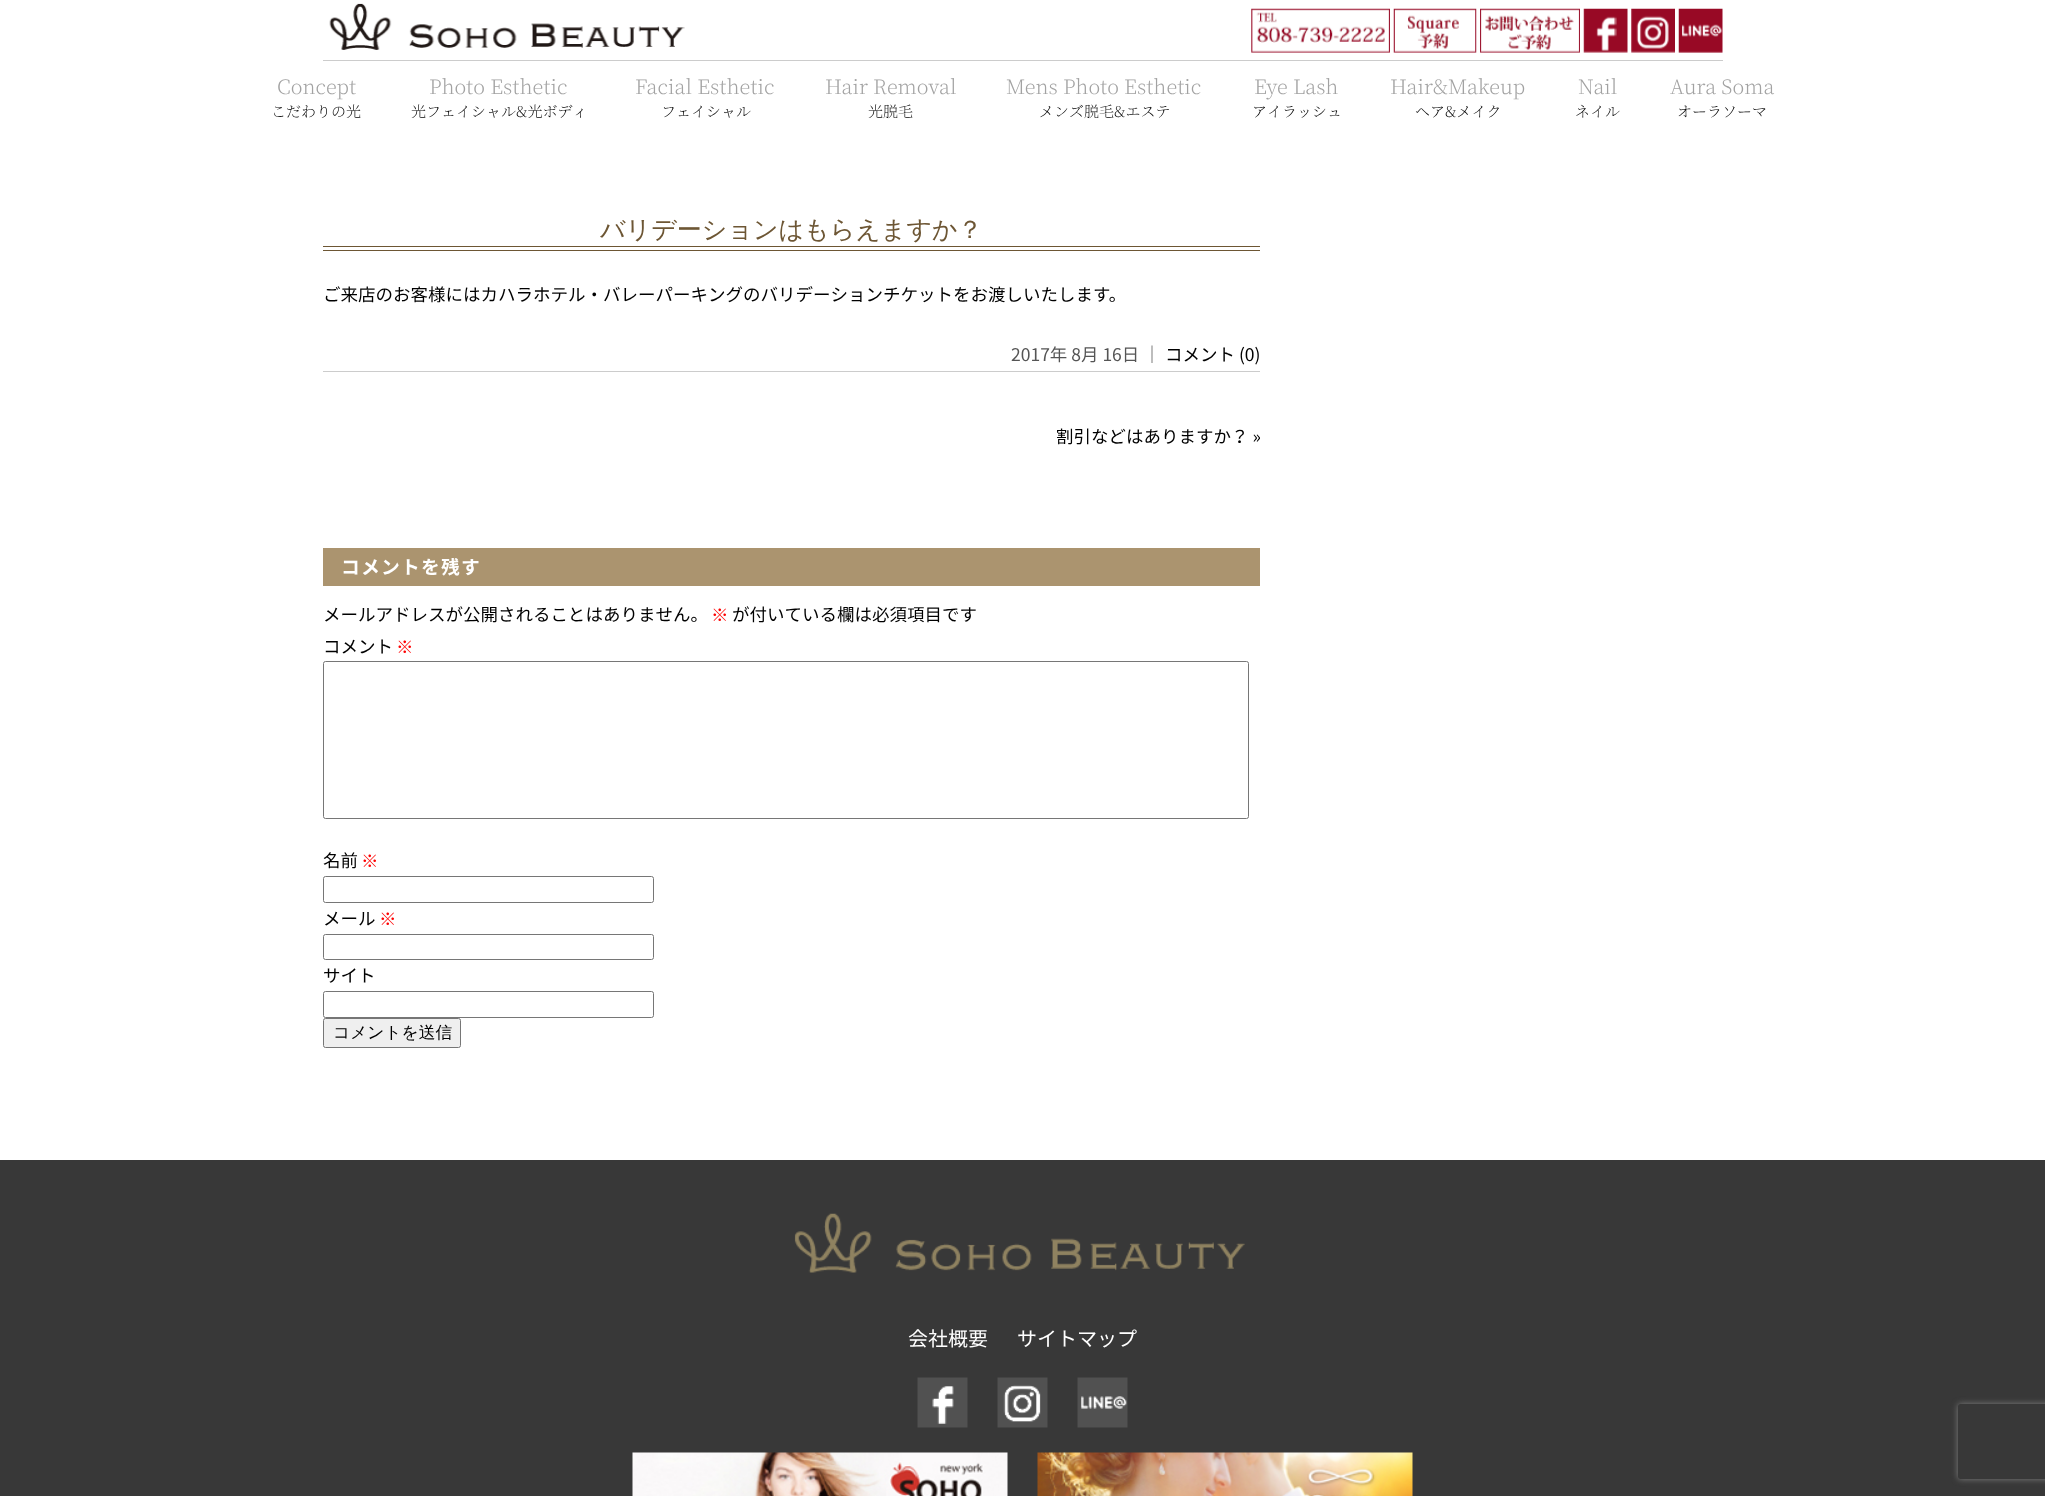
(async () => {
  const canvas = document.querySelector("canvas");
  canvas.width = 2045;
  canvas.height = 1496;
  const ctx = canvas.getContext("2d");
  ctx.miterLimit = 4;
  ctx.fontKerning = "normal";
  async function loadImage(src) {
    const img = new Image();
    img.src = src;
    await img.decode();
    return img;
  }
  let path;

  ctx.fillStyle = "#ffffff";
  ctx.fillRect(0, 0, 2045, 1496);
  ctx.fillStyle = "#cccccc";
  ctx.fillRect(323, 60, 1400, 1);
  ctx.drawImage(await loadImage("img/1.png"), 329, 3, 356, 47);
  ctx.drawImage(await loadImage("img/2.png"), 1251, 8, 139, 45);
  ctx.drawImage(await loadImage("img/3.png"), 1393, 8, 84, 45);
  ctx.drawImage(await loadImage("img/4.png"), 1480, 8, 100, 45);
  ctx.drawImage(await loadImage("img/5.png"), 1583, 8, 45, 45);
  ctx.drawImage(await loadImage("img/6.png"), 1631, 8, 44, 45);
  ctx.drawImage(await loadImage("img/7.png"), 1678, 8, 45, 45);
  for (const [x, y, w, h, color] of [
    [323, 246, 937, 1, "#6d5634"],
    [323, 250, 937, 1, "#6d5634"],
    [323, 371, 937, 1, "#cccccc"],
    [323, 548, 937, 38, "#ab946f"],
  ]) {
    ctx.fillStyle = color;
    ctx.fillRect(x, y, w, h);
  }
  ctx.beginPath();
  ctx.roundRect(323.5, 661.5, 925, 157, 2);
  ctx.strokeStyle = "#767676";
  ctx.stroke();
  ctx.beginPath();
  ctx.roundRect(323.5, 876.5, 330, 26, 2);
  ctx.stroke();
  ctx.beginPath();
  ctx.roundRect(323.5, 934.5, 330, 25, 2);
  ctx.stroke();
  ctx.beginPath();
  ctx.roundRect(323.5, 991.5, 330, 26, 2);
  ctx.stroke();
  ctx.fillStyle = "#efefef";
  ctx.beginPath();
  ctx.roundRect(323.5, 1018.5, 137, 29, 2);
  ctx.fill();
  ctx.stroke();
  ctx.fillStyle = "#383838";
  ctx.fillRect(0, 1160, 2045, 336);
  ctx.drawImage(await loadImage("img/8.png"), 794, 1213, 451, 60);
  ctx.drawImage(await loadImage("img/9.png"), 917, 1377, 51, 51);
  ctx.drawImage(await loadImage("img/10.png"), 997, 1377, 51, 51);
  ctx.drawImage(await loadImage("img/11.png"), 1077, 1377, 51, 51);
  ctx.drawImage(await loadImage("img/12.png"), 632, 1452, 376, 44);
  ctx.drawImage(await loadImage("img/13.png"), 1037, 1452, 376, 44);
  ctx.save();
  path = new Path2D("M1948 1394H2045V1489H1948ZM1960.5 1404H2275.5C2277 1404 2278 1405 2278 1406.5V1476.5C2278 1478 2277 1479 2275.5 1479H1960.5C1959 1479 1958 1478 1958 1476.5V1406.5C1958 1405 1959 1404 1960.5 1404Z");
  ctx.clip(path, "evenodd");
  ctx.fillStyle = "#808080";
  ctx.filter = "blur(3px)";
  ctx.beginPath();
  ctx.roundRect(1958, 1404, 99, 75, 2.5);
  ctx.fill();
  ctx.filter = "none";
  ctx.restore();
  ctx.font = "200 20px Noto Serif JP";
  ctx.fillStyle = "#a2a2a2";
  ctx.fillText("Concept", 277, 94);
  ctx.font = "200 15px Noto Serif JP";
  ctx.fillStyle = "#000000";
  ctx.fillText("こだわりの光", 271, 117);
  ctx.font = "200 20px Noto Serif JP";
  ctx.fillStyle = "#a2a2a2";
  ctx.fillText("Photo Esthetic", 429, 94);
  ctx.font = "200 15px Noto Serif JP";
  ctx.fillStyle = "#000000";
  ctx.fillText("光フェイシャル&光ボディ", 411, 117);
  ctx.font = "200 20px Noto Serif JP";
  ctx.fillStyle = "#a2a2a2";
  ctx.fillText("Facial Esthetic", 635, 94);
  ctx.font = "200 15px Noto Serif JP";
  ctx.fillStyle = "#000000";
  ctx.fillText("フェイシャル", 661, 117);
  ctx.font = "200 20px Noto Serif JP";
  ctx.fillStyle = "#a2a2a2";
  ctx.fillText("Hair Removal", 825, 94);
  ctx.font = "200 15px Noto Serif JP";
  ctx.fillStyle = "#000000";
  ctx.fillText("光脱毛", 868, 117);
  ctx.font = "200 20px Noto Serif JP";
  ctx.fillStyle = "#a2a2a2";
  ctx.fillText("Mens Photo Esthetic", 1006, 94);
  ctx.font = "200 15px Noto Serif JP";
  ctx.fillStyle = "#000000";
  ctx.fillText("メンズ脱毛&エステ", 1039, 117);
  ctx.font = "200 20px Noto Serif JP";
  ctx.fillStyle = "#a2a2a2";
  ctx.fillText("Eye Lash", 1254, 94);
  ctx.font = "200 15px Noto Serif JP";
  ctx.fillStyle = "#000000";
  ctx.fillText("アイラッシュ", 1252, 117);
  ctx.font = "200 20px Noto Serif JP";
  ctx.fillStyle = "#a2a2a2";
  ctx.fillText("Hair&Makeup", 1390, 94);
  ctx.font = "200 15px Noto Serif JP";
  ctx.fillStyle = "#000000";
  ctx.fillText("ヘア&メイク", 1415, 117);
  ctx.font = "200 20px Noto Serif JP";
  ctx.fillStyle = "#a2a2a2";
  ctx.fillText("Nail", 1578, 94);
  ctx.font = "200 15px Noto Serif JP";
  ctx.fillStyle = "#000000";
  ctx.fillText("ネイル", 1575, 117);
  ctx.font = "200 20px Noto Serif JP";
  ctx.fillStyle = "#a2a2a2";
  ctx.fillText("Aura Soma", 1670, 94);
  ctx.font = "200 15px Noto Serif JP";
  ctx.fillStyle = "#000000";
  ctx.fillText("オーラソーマ", 1677, 117);
  ctx.font = "500 25px WenQuanYi Zen Hei";
  ctx.fillStyle = "#6d5634";
  ctx.fillText("バリデーションはもらえますか？", 600, 238);
  ctx.font = "17.5px Noto Sans JP";
  ctx.fillStyle = "#000000";
  ctx.fillText("ご来店のお客様にはカハラホテル・バレーパーキングのバリデーションチケットをお渡しいたします。", 323, 301);
  ctx.fillStyle = "#555555";
  ctx.fillText("2017年 8月 16日 ｜", 1011, 361);
  ctx.fillStyle = "#000000";
  ctx.fillText("コメント (0)", 1165, 361);
  ctx.fillText("割引などはありますか？ »", 1056, 443);
  ctx.letterSpacing = "1.25px";
  ctx.font = "bold 18.75px Noto Sans JP";
  ctx.fillStyle = "#ffffff";
  ctx.fillText("コメントを残す", 341, 574);
  ctx.letterSpacing = "0px";
  ctx.font = "17.5px Noto Sans JP";
  ctx.fillStyle = "#000000";
  ctx.fillText("メールアドレスが公開されることはありません。", 323, 621);
  ctx.font = "500 17.5px WenQuanYi Zen Hei";
  ctx.fillStyle = "#ff0000";
  ctx.fillText("※", 711, 621);
  ctx.font = "17.5px Noto Sans JP";
  ctx.fillStyle = "#000000";
  ctx.fillText("が付いている欄は必須項目です", 732, 621);
  ctx.fillText("コメント", 323, 653);
  ctx.font = "500 17.5px WenQuanYi Zen Hei";
  ctx.fillStyle = "#ff0000";
  ctx.fillText("※", 396, 653);
  ctx.font = "17.5px Noto Sans JP";
  ctx.fillStyle = "#000000";
  ctx.fillText("名前", 323, 867);
  ctx.font = "500 17.5px WenQuanYi Zen Hei";
  ctx.fillStyle = "#ff0000";
  ctx.fillText("※", 361, 867);
  ctx.font = "17.5px Noto Sans JP";
  ctx.fillStyle = "#000000";
  ctx.fillText("メール", 323, 925);
  ctx.font = "500 17.5px WenQuanYi Zen Hei";
  ctx.fillStyle = "#ff0000";
  ctx.fillText("※", 379, 925);
  ctx.font = "17.5px Noto Sans JP";
  ctx.fillStyle = "#000000";
  ctx.fillText("サイト", 323, 982);
  ctx.font = "500 16.75px WenQuanYi Zen Hei";
  ctx.fillText("コメントを送信", 333, 1038);
  ctx.font = "20px Noto Sans JP";
  ctx.fillStyle = "#ffffff";
  ctx.fillText("会社概要", 908, 1346);
  ctx.fillText("サイトマップ", 1017, 1346);
})();
